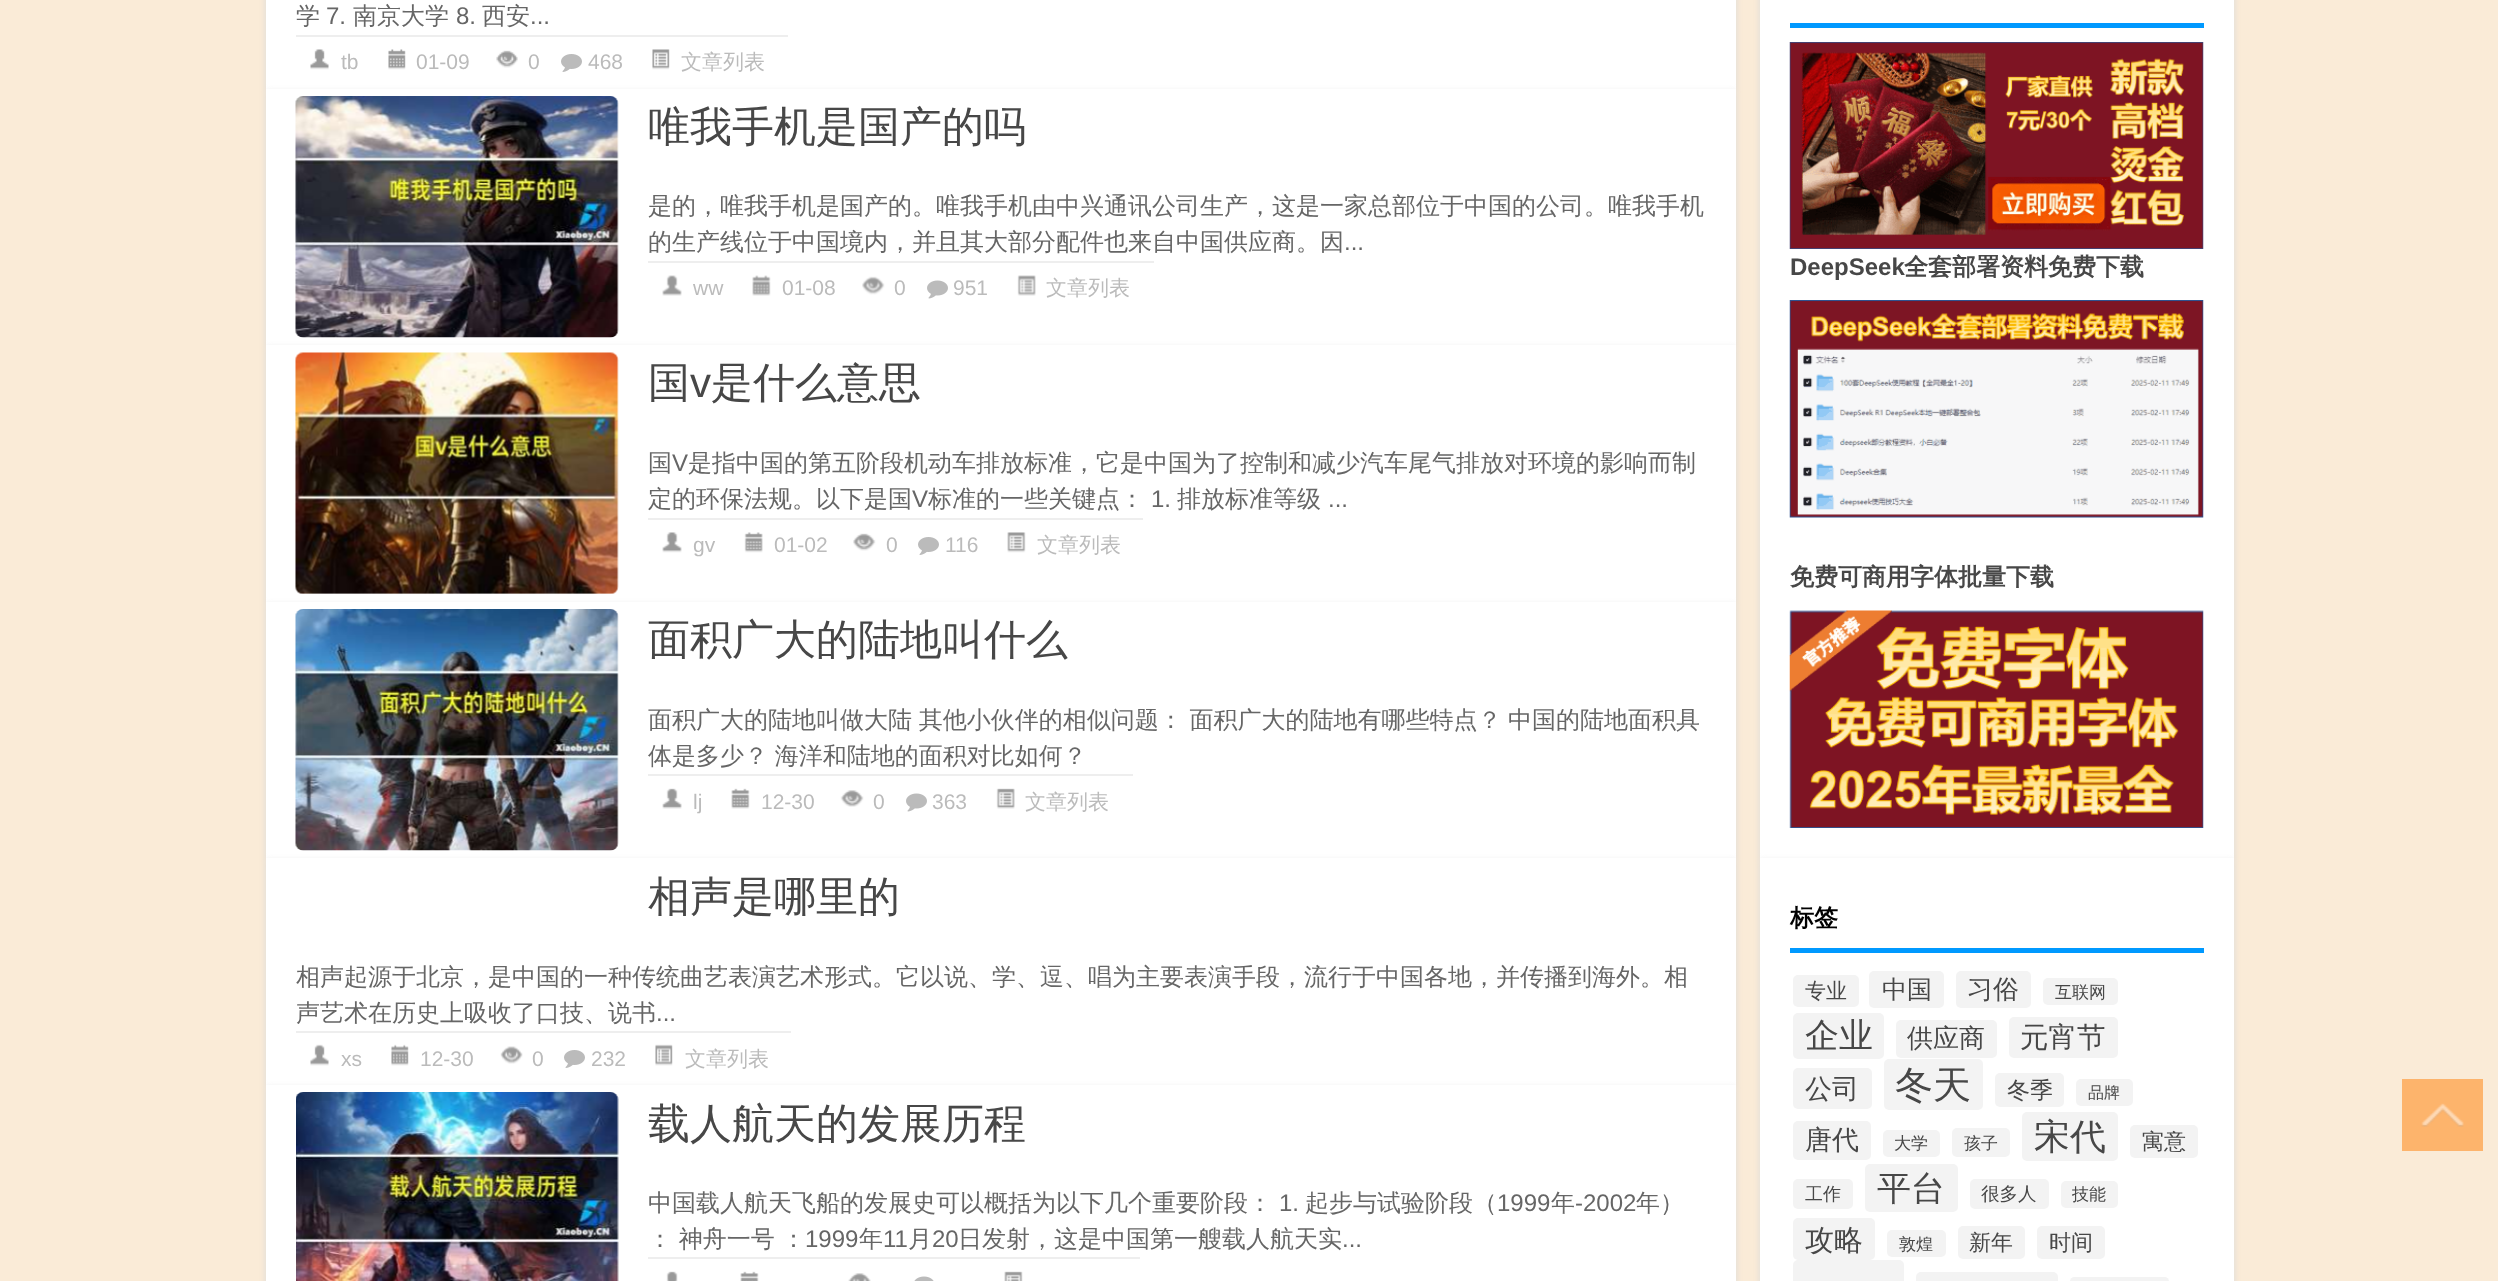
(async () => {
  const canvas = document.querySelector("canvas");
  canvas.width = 2498;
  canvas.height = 1281;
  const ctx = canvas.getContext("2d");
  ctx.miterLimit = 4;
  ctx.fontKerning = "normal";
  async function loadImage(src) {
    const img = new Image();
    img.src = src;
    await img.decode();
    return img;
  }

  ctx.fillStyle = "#faebd7";
  ctx.fillRect(0, 0, 2498, 1281);
  ctx.fillStyle = "#d9d9d9";
  ctx.filter = "blur(3px)";
  ctx.beginPath();
  ctx.rect(266, -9, 1470, 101);
  ctx.fill();
  ctx.filter = "none";
  ctx.fillStyle = "#ffffff";
  ctx.fillRect(266, 0, 1470, 89);
  ctx.fillStyle = "#eeeeee";
  ctx.fillRect(296, 35, 492, 2);
  ctx.drawImage(await loadImage("img/1.png"), 310, 49, 19, 21);
  ctx.drawImage(await loadImage("img/2.png"), 388, 49, 18, 21);
  ctx.drawImage(await loadImage("img/3.png"), 496, 50, 22, 18);
  ctx.drawImage(await loadImage("img/4.png"), 561, 54, 21, 18);
  ctx.drawImage(await loadImage("img/5.png"), 652, 49, 18, 21);
  ctx.fillStyle = "#d9d9d9";
  ctx.filter = "blur(3px)";
  ctx.beginPath();
  ctx.rect(266, 92, 1470, 256);
  ctx.fill();
  ctx.filter = "none";
  ctx.fillStyle = "#ffffff";
  ctx.fillRect(266, 89, 1470, 256);
  ctx.drawImage(await loadImage("img/6.png"), 295, 96, 324, 242);
  ctx.fillStyle = "#eeeeee";
  ctx.fillRect(648, 261, 506, 2);
  ctx.drawImage(await loadImage("img/7.png"), 662, 275, 20, 21);
  ctx.drawImage(await loadImage("img/8.png"), 752, 275, 19, 21);
  ctx.drawImage(await loadImage("img/9.png"), 862, 276, 23, 19);
  ctx.drawImage(await loadImage("img/10.png"), 927, 280, 21, 19);
  ctx.drawImage(await loadImage("img/11.png"), 1017, 275, 19, 21);
  ctx.fillStyle = "#d9d9d9";
  ctx.filter = "blur(3px)";
  ctx.beginPath();
  ctx.rect(266, 348, 1470, 257);
  ctx.fill();
  ctx.filter = "none";
  ctx.fillStyle = "#ffffff";
  ctx.fillRect(266, 345, 1470, 257);
  ctx.drawImage(await loadImage("img/12.png"), 295, 352, 324, 242);
  ctx.fillStyle = "#eeeeee";
  ctx.fillRect(648, 518, 495, 2);
  ctx.drawImage(await loadImage("img/13.png"), 662, 532, 20, 21);
  ctx.drawImage(await loadImage("img/14.png"), 744, 532, 19, 21);
  ctx.drawImage(await loadImage("img/15.png"), 853, 533, 23, 18);
  ctx.drawImage(await loadImage("img/4.png"), 918, 537, 21, 18);
  ctx.drawImage(await loadImage("img/16.png"), 1007, 532, 19, 21);
  ctx.fillStyle = "#d9d9d9";
  ctx.filter = "blur(3px)";
  ctx.beginPath();
  ctx.rect(266, 605, 1470, 256);
  ctx.fill();
  ctx.filter = "none";
  ctx.fillStyle = "#ffffff";
  ctx.fillRect(266, 602, 1470, 256);
  ctx.drawImage(await loadImage("img/17.png"), 295, 609, 324, 242);
  ctx.fillStyle = "#eeeeee";
  ctx.fillRect(648, 774, 485, 2);
  ctx.drawImage(await loadImage("img/18.png"), 662, 788, 20, 21);
  ctx.drawImage(await loadImage("img/19.png"), 731, 788, 19, 21);
  ctx.drawImage(await loadImage("img/20.png"), 840, 790, 24, 17);
  ctx.drawImage(await loadImage("img/10.png"), 906, 793, 21, 19);
  ctx.drawImage(await loadImage("img/21.png"), 996, 788, 19, 21);
  ctx.fillStyle = "#d9d9d9";
  ctx.filter = "blur(3px)";
  ctx.beginPath();
  ctx.rect(266, 861, 1470, 227);
  ctx.fill();
  ctx.filter = "none";
  ctx.fillStyle = "#ffffff";
  ctx.fillRect(266, 858, 1470, 227);
  ctx.fillStyle = "#eeeeee";
  ctx.fillRect(296, 1031, 495, 2);
  ctx.drawImage(await loadImage("img/22.png"), 310, 1044, 19, 22);
  ctx.drawImage(await loadImage("img/23.png"), 391, 1044, 18, 22);
  ctx.drawImage(await loadImage("img/24.png"), 500, 1046, 23, 18);
  ctx.drawImage(await loadImage("img/4.png"), 564, 1050, 21, 18);
  ctx.drawImage(await loadImage("img/25.png"), 655, 1044, 18, 22);
  ctx.fillStyle = "#d9d9d9";
  ctx.filter = "blur(3px)";
  ctx.beginPath();
  ctx.rect(266, 1088, 1470, 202);
  ctx.fill();
  ctx.filter = "none";
  ctx.fillStyle = "#ffffff";
  ctx.fillRect(266, 1085, 1470, 196);
  ctx.drawImage(await loadImage("img/26.png"), 296, 1092, 323, 189);
  ctx.fillStyle = "#eeeeee";
  ctx.fillRect(648, 1257, 492, 2);
  ctx.drawImage(await loadImage("img/27.png"), 666, 1271, 12, 10);
  ctx.drawImage(await loadImage("img/28.png"), 740, 1271, 19, 10);
  ctx.drawImage(await loadImage("img/29.png"), 848, 1273, 23, 8);
  ctx.drawImage(await loadImage("img/30.png"), 914, 1276, 20, 5);
  ctx.drawImage(await loadImage("img/31.png"), 1004, 1271, 19, 10);
  ctx.fillStyle = "#d9d9d9";
  ctx.filter = "blur(3px)";
  ctx.beginPath();
  ctx.rect(1760, -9, 474, 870);
  ctx.fill();
  ctx.filter = "none";
  ctx.fillStyle = "#ffffff";
  ctx.fillRect(1760, 0, 474, 858);
  ctx.fillStyle = "#0099ff";
  ctx.fillRect(1790, 23, 414, 5);
  ctx.drawImage(await loadImage("img/32.png"), 1789, 42, 415, 207);
  ctx.drawImage(await loadImage("img/33.png"), 1789, 300, 415, 218);
  ctx.drawImage(await loadImage("img/34.png"), 1789, 610, 415, 218);
  ctx.fillStyle = "#d9d9d9";
  ctx.filter = "blur(3px)";
  ctx.beginPath();
  ctx.rect(1760, 861, 474, 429);
  ctx.fill();
  ctx.filter = "none";
  ctx.fillStyle = "#ffffff";
  ctx.fillRect(1760, 858, 474, 423);
  ctx.fillStyle = "#0099ff";
  ctx.fillRect(1790, 948, 414, 5);
  ctx.fillStyle = "#f3f3f3";
  ctx.beginPath();
  ctx.roundRect(1793, 975, 66, 32, 5);
  ctx.fill();
  ctx.beginPath();
  ctx.roundRect(1869, 971, 75, 37, 5);
  ctx.fill();
  ctx.beginPath();
  ctx.roundRect(1956, 971, 75, 37, 5);
  ctx.fill();
  ctx.beginPath();
  ctx.roundRect(2043, 978, 75, 27, 5);
  ctx.fill();
  ctx.beginPath();
  ctx.roundRect(1793, 1013, 91, 46, 5);
  ctx.fill();
  ctx.beginPath();
  ctx.roundRect(1896, 1020, 101, 38, 5);
  ctx.fill();
  ctx.beginPath();
  ctx.roundRect(2009, 1017, 109, 41, 5);
  ctx.fill();
  ctx.beginPath();
  ctx.roundRect(1793, 1068, 79, 41, 5);
  ctx.fill();
  ctx.beginPath();
  ctx.roundRect(1884, 1059, 99, 51, 5);
  ctx.fill();
  ctx.beginPath();
  ctx.roundRect(1995, 1073, 69, 34, 5);
  ctx.fill();
  ctx.beginPath();
  ctx.roundRect(2076, 1079, 57, 27, 5);
  ctx.fill();
  ctx.beginPath();
  ctx.roundRect(1793, 1121, 78, 39, 5);
  ctx.fill();
  ctx.beginPath();
  ctx.roundRect(1883, 1130, 57, 27, 5);
  ctx.fill();
  ctx.beginPath();
  ctx.roundRect(1952, 1128, 58, 29, 5);
  ctx.fill();
  ctx.beginPath();
  ctx.roundRect(2022, 1112, 96, 49, 5);
  ctx.fill();
  ctx.beginPath();
  ctx.roundRect(2130, 1125, 68, 33, 5);
  ctx.fill();
  ctx.beginPath();
  ctx.roundRect(1793, 1179, 60, 30, 5);
  ctx.fill();
  ctx.beginPath();
  ctx.roundRect(1865, 1164, 93, 48, 5);
  ctx.fill();
  ctx.beginPath();
  ctx.roundRect(1970, 1179, 79, 30, 5);
  ctx.fill();
  ctx.beginPath();
  ctx.roundRect(2061, 1181, 57, 27, 5);
  ctx.fill();
  ctx.beginPath();
  ctx.roundRect(1793, 1218, 82, 42, 5);
  ctx.fill();
  ctx.beginPath();
  ctx.roundRect(1887, 1230, 59, 27, 5);
  ctx.fill();
  ctx.beginPath();
  ctx.roundRect(1958, 1226, 67, 33, 5);
  ctx.fill();
  ctx.beginPath();
  ctx.roundRect(2037, 1226, 68, 33, 5);
  ctx.fill();
  ctx.beginPath();
  ctx.roundRect(1793, 1260, 111, 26, 5);
  ctx.fill();
  ctx.beginPath();
  ctx.roundRect(1916, 1272, 142, 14, 5);
  ctx.fill();
  ctx.beginPath();
  ctx.roundRect(2070, 1277, 99, 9, 5);
  ctx.fill();
  ctx.fillStyle = "#fdb46c";
  ctx.fillRect(2402, 1079, 81, 72);
  ctx.drawImage(await loadImage("img/35.png"), 2421, 1103, 43, 24);
  ctx.font = "500 24px WenQuanYi Zen Hei";
  ctx.fillStyle = "#666666";
  ctx.fillText("学", 296, 24);
  ctx.font = "24px Liberation Sans";
  ctx.fillText("7.", 326, 24);
  ctx.font = "500 24px WenQuanYi Zen Hei";
  ctx.fillText("南京大学", 353, 24);
  ctx.font = "24px Liberation Sans";
  ctx.fillText("8.", 456, 24);
  ctx.font = "500 24px WenQuanYi Zen Hei";
  ctx.fillText("西安", 482, 24);
  ctx.font = "24px Liberation Sans";
  ctx.fillText("...", 530, 24);
  ctx.font = "21px Liberation Sans";
  ctx.fillStyle = "#bbbbbb";
  for (const [text, x, y] of [
    ["tb", 341, 69],
    ["01-09", 416, 69],
    ["0", 528, 69],
    ["468", 588, 69],
  ]) {
    ctx.fillText(text, x, y);
  }
  ctx.font = "500 21px WenQuanYi Zen Hei";
  ctx.fillText("文章列表", 681, 69);
  ctx.font = "500 42px WenQuanYi Zen Hei";
  ctx.fillStyle = "#474747";
  ctx.fillText("唯我手机是国产的吗", 648, 141);
  ctx.font = "500 24px WenQuanYi Zen Hei";
  ctx.fillStyle = "#666666";
  ctx.fillText("是的，唯我手机是国产的。唯我手机由中兴通讯公司生产，这是一家总部位于中国的公司。唯我手机", 648, 214);
  ctx.fillText("的生产线位于中国境内，并且其大部分配件也来自中国供应商。因", 648, 250);
  ctx.font = "24px Liberation Sans";
  ctx.fillText("...", 1344, 250);
  ctx.font = "21px Liberation Sans";
  ctx.fillStyle = "#bbbbbb";
  for (const [text, x, y] of [
    ["ww", 693, 295],
    ["01-08", 782, 295],
    ["0", 894, 295],
    ["951", 953, 295],
  ]) {
    ctx.fillText(text, x, y);
  }
  ctx.font = "500 21px WenQuanYi Zen Hei";
  ctx.fillText("文章列表", 1046, 295);
  ctx.font = "500 42px WenQuanYi Zen Hei";
  ctx.fillStyle = "#474747";
  ctx.fillText("国", 648, 397);
  ctx.font = "42px Liberation Sans";
  ctx.fillText("v", 690, 397);
  ctx.font = "500 42px WenQuanYi Zen Hei";
  ctx.fillText("是什么意思", 711, 397);
  ctx.font = "500 24px WenQuanYi Zen Hei";
  ctx.fillStyle = "#666666";
  ctx.fillText("国", 648, 471);
  ctx.font = "24px Liberation Sans";
  ctx.fillText("V", 672, 471);
  ctx.font = "500 24px WenQuanYi Zen Hei";
  ctx.fillText("是指中国的第五阶段机动车排放标准，它是中国为了控制和减少汽车尾气排放对环境的影响而制", 688, 471);
  ctx.fillText("定的环保法规。以下是国", 648, 507);
  ctx.font = "24px Liberation Sans";
  ctx.fillText("V", 912, 507);
  ctx.font = "500 24px WenQuanYi Zen Hei";
  ctx.fillText("标准的一些关键点：", 928, 507);
  ctx.font = "24px Liberation Sans";
  ctx.fillText("1.", 1151, 507);
  ctx.font = "500 24px WenQuanYi Zen Hei";
  ctx.fillText("排放标准等级", 1177, 507);
  ctx.font = "24px Liberation Sans";
  ctx.fillText("...", 1328, 507);
  ctx.font = "21px Liberation Sans";
  ctx.fillStyle = "#bbbbbb";
  for (const [text, x, y] of [
    ["gv", 693, 552],
    ["01-02", 774, 552],
    ["0", 886, 552],
    ["116", 945, 552],
  ]) {
    ctx.fillText(text, x, y);
  }
  ctx.font = "500 21px WenQuanYi Zen Hei";
  ctx.fillText("文章列表", 1037, 552);
  ctx.font = "500 42px WenQuanYi Zen Hei";
  ctx.fillStyle = "#474747";
  ctx.fillText("面积广大的陆地叫什么", 648, 654);
  ctx.wordSpacing = "-0.5px";
  ctx.font = "500 24px WenQuanYi Zen Hei";
  ctx.fillStyle = "#666666";
  ctx.fillText("面积广大的陆地叫做大陆 其他小伙伴的相似问题： 面积广大的陆地有哪些特点？ 中国的陆地面积具", 648, 728);
  ctx.fillText("体是多少？ 海洋和陆地的面积对比如何？", 648, 764);
  ctx.wordSpacing = "0px";
  ctx.font = "21px Liberation Sans";
  ctx.fillStyle = "#bbbbbb";
  for (const [text, x, y] of [
    ["lj", 693, 809],
    ["12-30", 761, 809],
    ["0", 873, 809],
    ["363", 932, 809],
  ]) {
    ctx.fillText(text, x, y);
  }
  ctx.font = "500 21px WenQuanYi Zen Hei";
  ctx.fillText("文章列表", 1025, 809);
  ctx.font = "500 42px WenQuanYi Zen Hei";
  ctx.fillStyle = "#474747";
  ctx.fillText("相声是哪里的", 648, 911);
  ctx.font = "500 24px WenQuanYi Zen Hei";
  ctx.fillStyle = "#666666";
  ctx.fillText("相声起源于北京，是中国的一种传统曲艺表演艺术形式。它以说、学、逗、唱为主要表演手段，流行于中国各地，并传播到海外。相", 296, 985);
  ctx.fillText("声艺术在历史上吸收了口技、说书", 296, 1021);
  ctx.font = "24px Liberation Sans";
  ctx.fillText("...", 656, 1021);
  ctx.font = "21px Liberation Sans";
  ctx.fillStyle = "#bbbbbb";
  for (const [text, x, y] of [
    ["xs", 341, 1066],
    ["12-30", 420, 1066],
    ["0", 532, 1066],
    ["232", 591, 1066],
  ]) {
    ctx.fillText(text, x, y);
  }
  ctx.font = "500 21px WenQuanYi Zen Hei";
  ctx.fillText("文章列表", 685, 1066);
  ctx.font = "500 42px WenQuanYi Zen Hei";
  ctx.fillStyle = "#474747";
  ctx.fillText("载人航天的发展历程", 648, 1138);
  ctx.font = "500 24px WenQuanYi Zen Hei";
  ctx.fillStyle = "#666666";
  ctx.fillText("中国载人航天飞船的发展史可以概括为以下几个重要阶段：", 648, 1211);
  ctx.font = "24px Liberation Sans";
  ctx.fillText("1.", 1279, 1211);
  ctx.font = "500 24px WenQuanYi Zen Hei";
  ctx.fillText("起步与试验阶段（", 1305, 1211);
  ctx.font = "24px Liberation Sans";
  ctx.fillText("1999", 1497, 1211);
  ctx.font = "500 24px WenQuanYi Zen Hei";
  ctx.fillText("年", 1551, 1211);
  ctx.font = "24px Liberation Sans";
  ctx.fillText("-2002", 1575, 1211);
  ctx.font = "500 24px WenQuanYi Zen Hei";
  ctx.fillText("年）", 1636, 1211);
  ctx.wordSpacing = "-0.5px";
  ctx.fillText("： 神舟一号 ：", 648, 1247);
  ctx.wordSpacing = "0px";
  ctx.font = "24px Liberation Sans";
  ctx.fillText("1999", 805, 1247);
  ctx.font = "500 24px WenQuanYi Zen Hei";
  ctx.fillText("年", 859, 1247);
  ctx.font = "24px Liberation Sans";
  ctx.fillText("11", 883, 1247);
  ctx.font = "500 24px WenQuanYi Zen Hei";
  ctx.fillText("月", 908, 1247);
  ctx.font = "24px Liberation Sans";
  ctx.fillText("20", 932, 1247);
  ctx.font = "500 24px WenQuanYi Zen Hei";
  ctx.fillText("日发射，这是中国第一艘载人航天实", 958, 1247);
  ctx.font = "24px Liberation Sans";
  ctx.fillText("...", 1342, 1247);
  ctx.font = "bold 24px Liberation Sans";
  ctx.fillStyle = "#474747";
  ctx.fillText("DeepSeek", 1790, 275);
  ctx.font = "bold 24px WenQuanYi Zen Hei";
  ctx.fillText("全套部署资料免费下载", 1904, 275);
  ctx.fillText("免费可商用字体批量下载", 1790, 585);
  ctx.fillStyle = "#000000";
  ctx.fillText("标签", 1790, 926);
  ctx.font = "500 21px WenQuanYi Zen Hei";
  ctx.fillStyle = "#474747";
  ctx.fillText("专业", 1805, 998);
  ctx.font = "500 25px WenQuanYi Zen Hei";
  ctx.fillText("中国", 1882, 998);
  ctx.font = "500 26px WenQuanYi Zen Hei";
  ctx.fillText("习俗", 1967, 998);
  ctx.font = "500 17px WenQuanYi Zen Hei";
  ctx.fillText("互联网", 2055, 998);
  ctx.font = "500 34px WenQuanYi Zen Hei";
  ctx.fillText("企业", 1805, 1047);
  ctx.font = "500 26px WenQuanYi Zen Hei";
  ctx.fillText("供应商", 1907, 1047);
  ctx.font = "500 28.5px WenQuanYi Zen Hei";
  ctx.fillText("元宵节", 2020, 1047);
  ctx.font = "500 27px WenQuanYi Zen Hei";
  ctx.fillText("公司", 1805, 1098);
  ctx.font = "500 38px WenQuanYi Zen Hei";
  ctx.fillText("冬天", 1895, 1098);
  ctx.font = "500 23px WenQuanYi Zen Hei";
  ctx.fillText("冬季", 2007, 1098);
  ctx.font = "500 16px WenQuanYi Zen Hei";
  ctx.fillText("品牌", 2088, 1098);
  ctx.font = "500 27px WenQuanYi Zen Hei";
  ctx.fillText("唐代", 1805, 1149);
  ctx.font = "500 17px WenQuanYi Zen Hei";
  ctx.fillText("大学", 1894, 1149);
  ctx.fillText("孩子", 1964, 1149);
  ctx.font = "500 36px WenQuanYi Zen Hei";
  ctx.fillText("宋代", 2034, 1149);
  ctx.font = "500 22px WenQuanYi Zen Hei";
  ctx.fillText("寓意", 2142, 1149);
  ctx.font = "500 18px WenQuanYi Zen Hei";
  ctx.fillText("工作", 1805, 1200);
  ctx.font = "500 34px WenQuanYi Zen Hei";
  ctx.fillText("平台", 1877, 1200);
  ctx.font = "500 18.5px WenQuanYi Zen Hei";
  ctx.fillText("很多人", 1981, 1200);
  ctx.font = "500 17px WenQuanYi Zen Hei";
  ctx.fillText("技能", 2072, 1200);
  ctx.font = "500 29px WenQuanYi Zen Hei";
  ctx.fillText("攻略", 1805, 1250);
  ctx.font = "500 17px WenQuanYi Zen Hei";
  ctx.fillText("敦煌", 1899, 1250);
  ctx.font = "500 22px WenQuanYi Zen Hei";
  ctx.fillText("新年", 1969, 1250);
  ctx.fillText("时间", 2049, 1250);
})();
